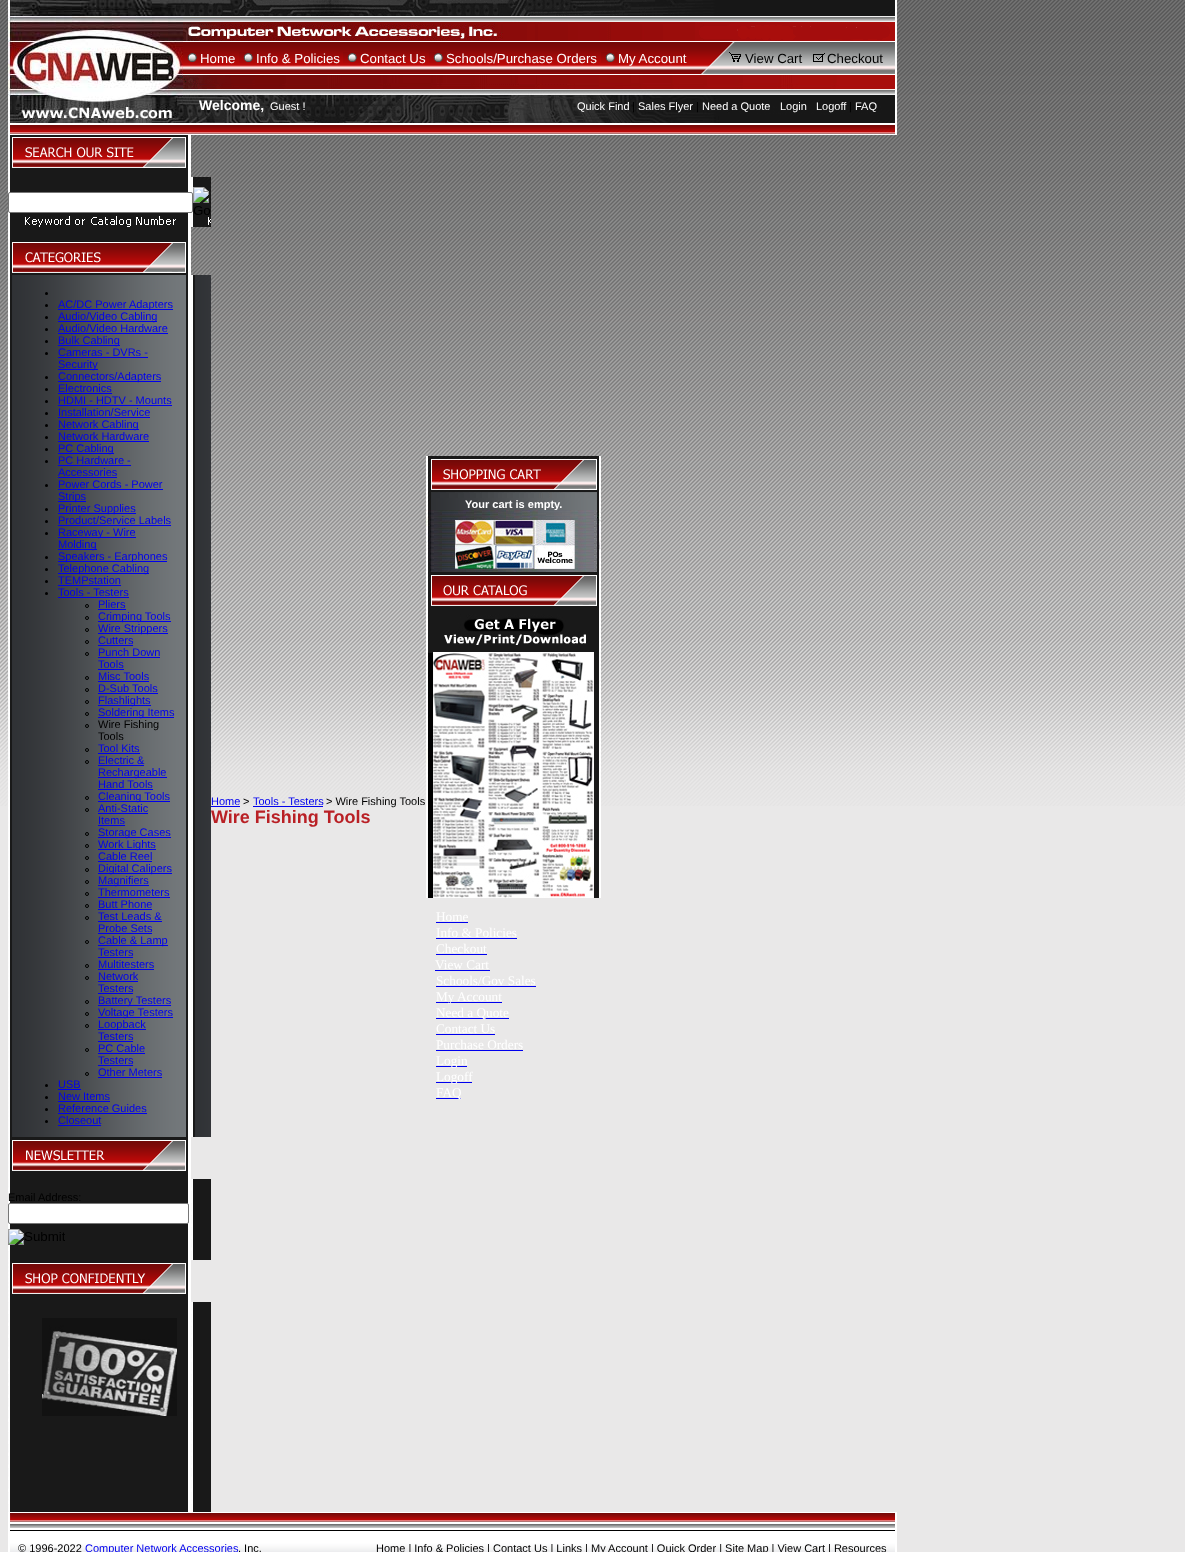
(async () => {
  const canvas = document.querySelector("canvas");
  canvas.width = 1185;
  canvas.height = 1552;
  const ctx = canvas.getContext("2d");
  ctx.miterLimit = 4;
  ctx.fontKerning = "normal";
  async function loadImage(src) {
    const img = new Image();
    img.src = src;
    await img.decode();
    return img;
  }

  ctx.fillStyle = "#e9e8e8";
  ctx.fillRect(0, 0, 1185, 1552);
  ctx.drawImage(await loadImage("img/1.png"), 0, 0, 1185, 806);
  ctx.drawImage(await loadImage("img/2.png"), 8, 0, 175, 123);
  ctx.drawImage(await loadImage("img/3.png"), 183, 0, 714, 41);
  ctx.drawImage(await loadImage("img/4.png"), 183, 41, 714, 34);
  ctx.drawImage(await loadImage("img/5.png"), 183, 52, 17, 11);
  ctx.drawImage(await loadImage("img/5.png"), 239, 52, 17, 11);
  ctx.drawImage(await loadImage("img/5.png"), 343, 52, 17, 11);
  ctx.drawImage(await loadImage("img/5.png"), 429, 52, 17, 11);
  ctx.drawImage(await loadImage("img/5.png"), 601, 52, 17, 11);
  ctx.drawImage(await loadImage("img/6.png"), 700, 55, 20, 19);
  ctx.drawImage(await loadImage("img/7.png"), 720, 42, 175, 32);
  ctx.drawImage(await loadImage("img/8.png"), 720, 42, 21, 20);
  ctx.drawImage(await loadImage("img/9.png"), 813, 53, 12, 9);
  ctx.drawImage(await loadImage("img/10.png"), 895, 42, 2, 32);
  ctx.drawImage(await loadImage("img/11.png"), 183, 75, 714, 48);
  ctx.drawImage(await loadImage("img/12.png"), 8, 123, 889, 12);
  ctx.drawImage(await loadImage("img/13.png"), 8, 135, 183, 42);
  ctx.drawImage(await loadImage("img/14.png"), 8, 177, 203, 50);
  ctx.fillStyle = "#ffffff";
  ctx.beginPath();
  ctx.roundRect(8.5, 192.5, 184, 20, 1.5);
  ctx.fill();
  ctx.strokeStyle = "#767676";
  ctx.stroke();
  ctx.drawImage(await loadImage("img/15.png"), 193, 187, 17, 28);
  ctx.drawImage(await loadImage("img/16.png"), 8, 227, 183, 12);
  ctx.drawImage(await loadImage("img/17.png"), 8, 239, 183, 36);
  ctx.drawImage(await loadImage("img/18.png"), 8, 275, 203, 862);
  ctx.fillStyle = "#000000";
  ctx.beginPath();
  ctx.arc(46.5, 293.5, 1.5, 0, Math.PI * 2);
  ctx.fill();
  ctx.beginPath();
  ctx.arc(46.5, 305.5, 1.5, 0, Math.PI * 2);
  ctx.fill();
  ctx.fillStyle = "#0000ee";
  ctx.fillRect(58, 309, 115, 1);
  ctx.fillStyle = "#000000";
  ctx.beginPath();
  ctx.arc(46.5, 317.5, 1.5, 0, Math.PI * 2);
  ctx.fill();
  ctx.fillStyle = "#0000ee";
  ctx.fillRect(58, 321, 99, 1);
  ctx.fillStyle = "#000000";
  ctx.beginPath();
  ctx.arc(46.5, 329.5, 1.5, 0, Math.PI * 2);
  ctx.fill();
  ctx.fillStyle = "#0000ee";
  ctx.fillRect(58, 333, 110, 1);
  ctx.fillStyle = "#000000";
  ctx.beginPath();
  ctx.arc(46.5, 341.5, 1.5, 0, Math.PI * 2);
  ctx.fill();
  ctx.fillStyle = "#0000ee";
  ctx.fillRect(58, 345, 62, 1);
  ctx.fillStyle = "#000000";
  ctx.beginPath();
  ctx.arc(46.5, 353.5, 1.5, 0, Math.PI * 2);
  ctx.fill();
  ctx.fillStyle = "#0000ee";
  ctx.fillRect(58, 357, 90, 1);
  ctx.fillRect(58, 369, 40, 1);
  ctx.fillStyle = "#000000";
  ctx.beginPath();
  ctx.arc(46.5, 377.5, 1.5, 0, Math.PI * 2);
  ctx.fill();
  ctx.fillStyle = "#0000ee";
  ctx.fillRect(58, 381, 103, 1);
  ctx.fillStyle = "#000000";
  ctx.beginPath();
  ctx.arc(46.5, 389.5, 1.5, 0, Math.PI * 2);
  ctx.fill();
  ctx.fillStyle = "#0000ee";
  ctx.fillRect(58, 393, 54, 1);
  ctx.fillStyle = "#000000";
  ctx.beginPath();
  ctx.arc(46.5, 401.5, 1.5, 0, Math.PI * 2);
  ctx.fill();
  ctx.fillStyle = "#0000ee";
  ctx.fillRect(58, 405, 114, 1);
  ctx.fillStyle = "#000000";
  ctx.beginPath();
  ctx.arc(46.5, 413.5, 1.5, 0, Math.PI * 2);
  ctx.fill();
  ctx.fillStyle = "#0000ee";
  ctx.fillRect(58, 417, 92, 1);
  ctx.fillStyle = "#000000";
  ctx.beginPath();
  ctx.arc(46.5, 425.5, 1.5, 0, Math.PI * 2);
  ctx.fill();
  ctx.fillStyle = "#0000ee";
  ctx.fillRect(58, 429, 81, 1);
  ctx.fillStyle = "#000000";
  ctx.beginPath();
  ctx.arc(46.5, 437.5, 1.5, 0, Math.PI * 2);
  ctx.fill();
  ctx.fillStyle = "#0000ee";
  ctx.fillRect(58, 441, 91, 1);
  ctx.fillStyle = "#000000";
  ctx.beginPath();
  ctx.arc(46.5, 449.5, 1.5, 0, Math.PI * 2);
  ctx.fill();
  ctx.fillStyle = "#0000ee";
  ctx.fillRect(58, 453, 56, 1);
  ctx.fillStyle = "#000000";
  ctx.beginPath();
  ctx.arc(46.5, 461.5, 1.5, 0, Math.PI * 2);
  ctx.fill();
  ctx.fillStyle = "#0000ee";
  ctx.fillRect(58, 465, 73, 1);
  ctx.fillRect(58, 477, 59, 1);
  ctx.fillStyle = "#000000";
  ctx.beginPath();
  ctx.arc(46.5, 485.5, 1.5, 0, Math.PI * 2);
  ctx.fill();
  ctx.fillStyle = "#0000ee";
  ctx.fillRect(58, 489, 105, 1);
  ctx.fillRect(58, 501, 28, 1);
  ctx.fillStyle = "#000000";
  ctx.beginPath();
  ctx.arc(46.5, 509.5, 1.5, 0, Math.PI * 2);
  ctx.fill();
  ctx.fillStyle = "#0000ee";
  ctx.fillRect(58, 513, 78, 1);
  ctx.fillStyle = "#000000";
  ctx.beginPath();
  ctx.arc(46.5, 521.5, 1.5, 0, Math.PI * 2);
  ctx.fill();
  ctx.fillStyle = "#0000ee";
  ctx.fillRect(58, 525, 113, 1);
  ctx.fillStyle = "#000000";
  ctx.beginPath();
  ctx.arc(46.5, 533.5, 1.5, 0, Math.PI * 2);
  ctx.fill();
  ctx.fillStyle = "#0000ee";
  ctx.fillRect(58, 537, 78, 1);
  ctx.fillRect(58, 549, 39, 1);
  ctx.fillStyle = "#000000";
  ctx.beginPath();
  ctx.arc(46.5, 557.5, 1.5, 0, Math.PI * 2);
  ctx.fill();
  ctx.fillStyle = "#0000ee";
  ctx.fillRect(58, 561, 109, 1);
  ctx.fillStyle = "#000000";
  ctx.beginPath();
  ctx.arc(46.5, 569.5, 1.5, 0, Math.PI * 2);
  ctx.fill();
  ctx.fillStyle = "#0000ee";
  ctx.fillRect(58, 573, 91, 1);
  ctx.fillStyle = "#000000";
  ctx.beginPath();
  ctx.arc(46.5, 581.5, 1.5, 0, Math.PI * 2);
  ctx.fill();
  ctx.fillStyle = "#0000ee";
  ctx.fillRect(58, 585, 63, 1);
  ctx.fillStyle = "#000000";
  ctx.beginPath();
  ctx.arc(46.5, 593.5, 1.5, 0, Math.PI * 2);
  ctx.fill();
  ctx.fillStyle = "#0000ee";
  ctx.fillRect(58, 597, 71, 1);
  ctx.beginPath();
  ctx.arc(87, 606, 1.5, 0, Math.PI * 2);
  ctx.strokeStyle = "#000000";
  ctx.stroke();
  ctx.fillRect(98, 609, 28, 1);
  ctx.beginPath();
  ctx.arc(87, 618, 1.5, 0, Math.PI * 2);
  ctx.stroke();
  ctx.fillRect(98, 621, 73, 1);
  ctx.beginPath();
  ctx.arc(87, 630, 1.5, 0, Math.PI * 2);
  ctx.stroke();
  ctx.fillRect(98, 633, 70, 1);
  ctx.beginPath();
  ctx.arc(87, 642, 1.5, 0, Math.PI * 2);
  ctx.stroke();
  ctx.fillRect(98, 645, 35, 1);
  ctx.beginPath();
  ctx.arc(87, 654, 1.5, 0, Math.PI * 2);
  ctx.stroke();
  ctx.fillRect(98, 657, 62, 1);
  ctx.fillRect(98, 669, 26, 1);
  ctx.beginPath();
  ctx.arc(87, 678, 1.5, 0, Math.PI * 2);
  ctx.stroke();
  ctx.fillRect(98, 681, 51, 1);
  ctx.beginPath();
  ctx.arc(87, 690, 1.5, 0, Math.PI * 2);
  ctx.stroke();
  ctx.fillRect(98, 693, 60, 1);
  ctx.beginPath();
  ctx.arc(87, 702, 1.5, 0, Math.PI * 2);
  ctx.stroke();
  ctx.fillRect(98, 705, 53, 1);
  ctx.beginPath();
  ctx.arc(87, 714, 1.5, 0, Math.PI * 2);
  ctx.stroke();
  ctx.fillRect(98, 717, 76, 1);
  ctx.beginPath();
  ctx.arc(87, 726, 1.5, 0, Math.PI * 2);
  ctx.stroke();
  ctx.beginPath();
  ctx.arc(87, 750, 1.5, 0, Math.PI * 2);
  ctx.stroke();
  ctx.fillRect(98, 753, 42, 1);
  ctx.beginPath();
  ctx.arc(87, 762, 1.5, 0, Math.PI * 2);
  ctx.stroke();
  for (const [x, y, w, h, color] of [
    [98, 765, 46, 1, "#0000ee"],
    [98, 777, 69, 1, "#0000ee"],
    [98, 789, 55, 1, "#0000ee"],
  ]) {
    ctx.fillStyle = color;
    ctx.fillRect(x, y, w, h);
  }
  ctx.beginPath();
  ctx.arc(87, 798, 1.5, 0, Math.PI * 2);
  ctx.stroke();
  ctx.fillRect(98, 801, 72, 1);
  ctx.beginPath();
  ctx.arc(87, 810, 1.5, 0, Math.PI * 2);
  ctx.stroke();
  ctx.fillRect(98, 813, 50, 1);
  ctx.fillRect(98, 825, 27, 1);
  ctx.beginPath();
  ctx.arc(87, 834, 1.5, 0, Math.PI * 2);
  ctx.stroke();
  ctx.fillRect(98, 837, 73, 1);
  ctx.beginPath();
  ctx.arc(87, 846, 1.5, 0, Math.PI * 2);
  ctx.stroke();
  ctx.fillRect(98, 849, 58, 1);
  ctx.beginPath();
  ctx.arc(87, 858, 1.5, 0, Math.PI * 2);
  ctx.stroke();
  ctx.fillRect(98, 861, 54, 1);
  ctx.beginPath();
  ctx.arc(87, 870, 1.5, 0, Math.PI * 2);
  ctx.stroke();
  ctx.fillRect(98, 873, 74, 1);
  ctx.beginPath();
  ctx.arc(87, 882, 1.5, 0, Math.PI * 2);
  ctx.stroke();
  ctx.fillRect(98, 885, 51, 1);
  ctx.beginPath();
  ctx.arc(87, 894, 1.5, 0, Math.PI * 2);
  ctx.stroke();
  ctx.fillRect(98, 897, 72, 1);
  ctx.beginPath();
  ctx.arc(87, 906, 1.5, 0, Math.PI * 2);
  ctx.stroke();
  ctx.fillRect(98, 909, 54, 1);
  ctx.beginPath();
  ctx.arc(87, 918, 1.5, 0, Math.PI * 2);
  ctx.stroke();
  ctx.fillRect(98, 921, 64, 1);
  ctx.fillRect(98, 933, 54, 1);
  ctx.beginPath();
  ctx.arc(87, 942, 1.5, 0, Math.PI * 2);
  ctx.stroke();
  ctx.fillRect(98, 945, 70, 1);
  ctx.fillRect(98, 957, 35, 1);
  ctx.beginPath();
  ctx.arc(87, 966, 1.5, 0, Math.PI * 2);
  ctx.stroke();
  ctx.fillRect(98, 969, 56, 1);
  ctx.beginPath();
  ctx.arc(87, 978, 1.5, 0, Math.PI * 2);
  ctx.stroke();
  ctx.fillRect(98, 981, 40, 1);
  ctx.fillRect(98, 993, 35, 1);
  ctx.beginPath();
  ctx.arc(87, 1002, 1.5, 0, Math.PI * 2);
  ctx.stroke();
  ctx.fillRect(98, 1005, 73, 1);
  ctx.beginPath();
  ctx.arc(87, 1014, 1.5, 0, Math.PI * 2);
  ctx.stroke();
  ctx.fillRect(98, 1017, 75, 1);
  ctx.beginPath();
  ctx.arc(87, 1026, 1.5, 0, Math.PI * 2);
  ctx.stroke();
  ctx.fillRect(98, 1029, 48, 1);
  ctx.fillRect(98, 1041, 35, 1);
  ctx.beginPath();
  ctx.arc(87, 1050, 1.5, 0, Math.PI * 2);
  ctx.stroke();
  ctx.fillRect(98, 1053, 47, 1);
  ctx.fillRect(98, 1065, 35, 1);
  ctx.beginPath();
  ctx.arc(87, 1074, 1.5, 0, Math.PI * 2);
  ctx.stroke();
  ctx.fillRect(98, 1077, 64, 1);
  ctx.fillStyle = "#000000";
  ctx.beginPath();
  ctx.arc(46.5, 1085.5, 1.5, 0, Math.PI * 2);
  ctx.fill();
  ctx.fillStyle = "#0000ee";
  ctx.fillRect(58, 1089, 23, 1);
  ctx.fillStyle = "#000000";
  ctx.beginPath();
  ctx.arc(46.5, 1097.5, 1.5, 0, Math.PI * 2);
  ctx.fill();
  ctx.fillStyle = "#0000ee";
  ctx.fillRect(58, 1101, 52, 1);
  ctx.fillStyle = "#000000";
  ctx.beginPath();
  ctx.arc(46.5, 1109.5, 1.5, 0, Math.PI * 2);
  ctx.fill();
  ctx.fillStyle = "#0000ee";
  ctx.fillRect(58, 1113, 89, 1);
  ctx.fillStyle = "#000000";
  ctx.beginPath();
  ctx.arc(46.5, 1121.5, 1.5, 0, Math.PI * 2);
  ctx.fill();
  ctx.fillStyle = "#0000ee";
  ctx.fillRect(58, 1125, 43, 1);
  ctx.drawImage(await loadImage("img/19.png"), 8, 1137, 183, 42);
  ctx.drawImage(await loadImage("img/20.png"), 8, 1179, 203, 81);
  ctx.fillStyle = "#ffffff";
  ctx.beginPath();
  ctx.roundRect(8.5, 1203.5, 180, 20, 1.5);
  ctx.fill();
  ctx.strokeStyle = "#767676";
  ctx.stroke();
  ctx.drawImage(await loadImage("img/21.png"), 8, 1229, 57, 16);
  ctx.drawImage(await loadImage("img/22.png"), 8, 1260, 183, 42);
  ctx.drawImage(await loadImage("img/23.png"), 8, 1302, 203, 130);
  ctx.drawImage(await loadImage("img/24.png"), 42, 1318, 135, 98);
  ctx.drawImage(await loadImage("img/25.png"), 8, 1432, 203, 80);
  ctx.fillStyle = "#0000ee";
  ctx.fillRect(211, 806, 29, 1);
  ctx.fillRect(253, 806, 70, 1);
  ctx.drawImage(await loadImage("img/26.png"), 426, 456, 175, 42);
  ctx.drawImage(await loadImage("img/27.png"), 426, 498, 175, 12);
  ctx.drawImage(await loadImage("img/29.png"), 426, 572, 175, 42);
  ctx.drawImage(await loadImage("img/30.png"), 426, 614, 175, 38);
  ctx.drawImage(await loadImage("img/31.png"), 426, 652, 175, 246);
  for (const [x, y, w, h, color] of [
    [436, 922, 32, 1, "#0000ee"],
    [436, 938, 81, 1, "#0000ee"],
    [436, 954, 51, 1, "#0000ee"],
    [435, 970, 55, 1, "#0000ee"],
    [436, 986, 100, 1, "#0000ee"],
    [436, 1002, 66, 1, "#0000ee"],
    [436, 1018, 73, 1, "#0000ee"],
    [436, 1034, 59, 1, "#0000ee"],
    [436, 1050, 87, 1, "#0000ee"],
    [436, 1066, 31, 1, "#0000ee"],
    [436, 1082, 36, 1, "#0000ee"],
    [436, 1098, 25, 1, "#0000ee"],
  ]) {
    ctx.fillStyle = color;
    ctx.fillRect(x, y, w, h);
  }
  ctx.drawImage(await loadImage("img/32.png"), 8, 1512, 889, 19);
  ctx.drawImage(await loadImage("img/33.png"), 8, 1531, 889, 21);
  ctx.font = "13.25px Liberation Sans";
  ctx.fillStyle = "#ffffff";
  for (const [text, x, y] of [
    ["Home", 200, 63],
    ["Info & Policies", 256, 63],
    ["Contact Us", 360, 63],
    ["Schools/Purchase Orders", 446, 63],
    ["My Account", 618, 63],
  ]) {
    ctx.fillText(text, x, y);
  }
  ctx.fillStyle = "#000000";
  ctx.fillText("View Cart", 745, 63);
  ctx.fillText("Checkout", 827, 63);
  ctx.font = "bold 14px Liberation Sans";
  ctx.fillStyle = "#ffffff";
  ctx.fillText("Welcome,", 199, 110);
  ctx.font = "11px Liberation Sans";
  ctx.fillText("Guest !", 270, 110);
  ctx.fillText("Quick Find", 577, 110);
  ctx.fillStyle = "#000000";
  ctx.fillText("|", 632, 110);
  ctx.fillStyle = "#ffffff";
  ctx.fillText("Sales Flyer", 638, 110);
  ctx.fillStyle = "#000000";
  ctx.fillText("|", 696, 110);
  ctx.fillStyle = "#ffffff";
  for (const [text, x, y] of [
    ["Need a Quote", 702, 110],
    ["Login", 780, 110],
    ["Logoff", 816, 110],
  ]) {
    ctx.fillText(text, x, y);
  }
  ctx.fillStyle = "#000000";
  ctx.fillText("|", 849, 110);
  ctx.fillStyle = "#ffffff";
  ctx.fillText("FAQ", 855, 110);
  ctx.fillStyle = "#0000ee";
  for (const [text, x, y] of [
    ["AC/DC Power Adapters", 58, 308],
    ["Audio/Video Cabling", 58, 320],
    ["Audio/Video Hardware", 58, 332],
    ["Bulk Cabling", 58, 344],
    ["Cameras - DVRs -", 58, 356],
    ["Security", 58, 368],
    ["Connectors/Adapters", 58, 380],
    ["Electronics", 58, 392],
    ["HDMI - HDTV - Mounts", 58, 404],
    ["Installation/Service", 58, 416],
    ["Network Cabling", 58, 428],
    ["Network Hardware", 58, 440],
    ["PC Cabling", 58, 452],
    ["PC Hardware -", 58, 464],
    ["Accessories", 58, 476],
    ["Power Cords - Power", 58, 488],
    ["Strips", 58, 500],
    ["Printer Supplies", 58, 512],
    ["Product/Service Labels", 58, 524],
    ["Raceway - Wire", 58, 536],
    ["Molding", 58, 548],
    ["Speakers - Earphones", 58, 560],
    ["Telephone Cabling", 58, 572],
    ["TEMPstation", 58, 584],
    ["Tools - Testers", 58, 596],
    ["Pliers", 98, 608],
    ["Crimping Tools", 98, 620],
    ["Wire Strippers", 98, 632],
    ["Cutters", 98, 644],
    ["Punch Down", 98, 656],
    ["Tools", 98, 668],
    ["Misc Tools", 98, 680],
    ["D-Sub Tools", 98, 692],
    ["Flashlights", 98, 704],
    ["Soldering Items", 98, 716],
  ]) {
    ctx.fillText(text, x, y);
  }
  ctx.fillStyle = "#000000";
  ctx.fillText("Wire Fishing", 98, 728);
  ctx.fillText("Tools", 98, 740);
  ctx.fillStyle = "#0000ee";
  for (const [text, x, y] of [
    ["Tool Kits", 98, 752],
    ["Electric &", 98, 764],
    ["Rechargeable", 98, 776],
    ["Hand Tools", 98, 788],
    ["Cleaning Tools", 98, 800],
    ["Anti-Static", 98, 812],
    ["Items", 98, 824],
    ["Storage Cases", 98, 836],
    ["Work Lights", 98, 848],
    ["Cable Reel", 98, 860],
    ["Digital Calipers", 98, 872],
    ["Magnifiers", 98, 884],
    ["Thermometers", 98, 896],
    ["Butt Phone", 98, 908],
    ["Test Leads &", 98, 920],
    ["Probe Sets", 98, 932],
    ["Cable & Lamp", 98, 944],
    ["Testers", 98, 956],
    ["Multitesters", 98, 968],
    ["Network", 98, 980],
    ["Testers", 98, 992],
    ["Battery Testers", 98, 1004],
    ["Voltage Testers", 98, 1016],
    ["Loopback", 98, 1028],
    ["Testers", 98, 1040],
    ["PC Cable", 98, 1052],
    ["Testers", 98, 1064],
    ["Other Meters", 98, 1076],
    ["USB", 58, 1088],
    ["New Items", 58, 1100],
    ["Reference Guides", 58, 1112],
    ["Closeout", 58, 1124],
  ]) {
    ctx.fillText(text, x, y);
  }
  ctx.fillStyle = "#000000";
  ctx.fillText("Email Address:", 8, 1201);
  ctx.fillStyle = "#0000ee";
  ctx.fillText("Home", 211, 805);
  ctx.fillStyle = "#000000";
  ctx.fillText(">", 243, 805);
  ctx.fillStyle = "#0000ee";
  ctx.fillText("Tools - Testers", 253, 805);
  ctx.fillStyle = "#000000";
  ctx.fillText("> Wire Fishing Tools", 326, 805);
  ctx.font = "bold 18px Liberation Sans";
  ctx.fillStyle = "#b92025";
  ctx.fillText("Wire Fishing Tools", 211, 823);
  ctx.font = "bold 11px Liberation Sans";
  ctx.fillStyle = "#ffffff";
  ctx.fillText("Your cart is empty.", 465, 508);
  ctx.drawImage(await loadImage("img/28.png"), 426, 510, 175, 62);
  ctx.font = "13.25px Liberation Serif";
  for (const [text, x, y] of [
    ["Home", 436, 921],
    ["Info & Policies", 436, 937],
    ["Checkout", 436, 953],
    ["View Cart", 435, 969],
    ["Schools/Gov Sales", 436, 985],
    ["My Account", 436, 1001],
    ["Need a Quote", 436, 1017],
    ["Contact Us", 436, 1033],
    ["Purchase Orders", 436, 1049],
    ["Login", 436, 1065],
    ["Logoff", 436, 1081],
    ["FAQ", 436, 1097],
  ]) {
    ctx.fillText(text, x, y);
  }
  ctx.font = "11px Liberation Sans";
  ctx.fillStyle = "#000000";
  ctx.fillText("© 1996-2022", 18, 1552);
  ctx.fillStyle = "#0000ee";
  ctx.fillText("Computer Network Accessories", 85, 1552);
  ctx.fillStyle = "#000000";
  ctx.fillText(", Inc.", 238, 1552);
  ctx.fillText("Home | Info & Policies | Contact Us | Links | My Account | Quick Order | Site Map | View Cart | Resources", 376, 1552);
})();
